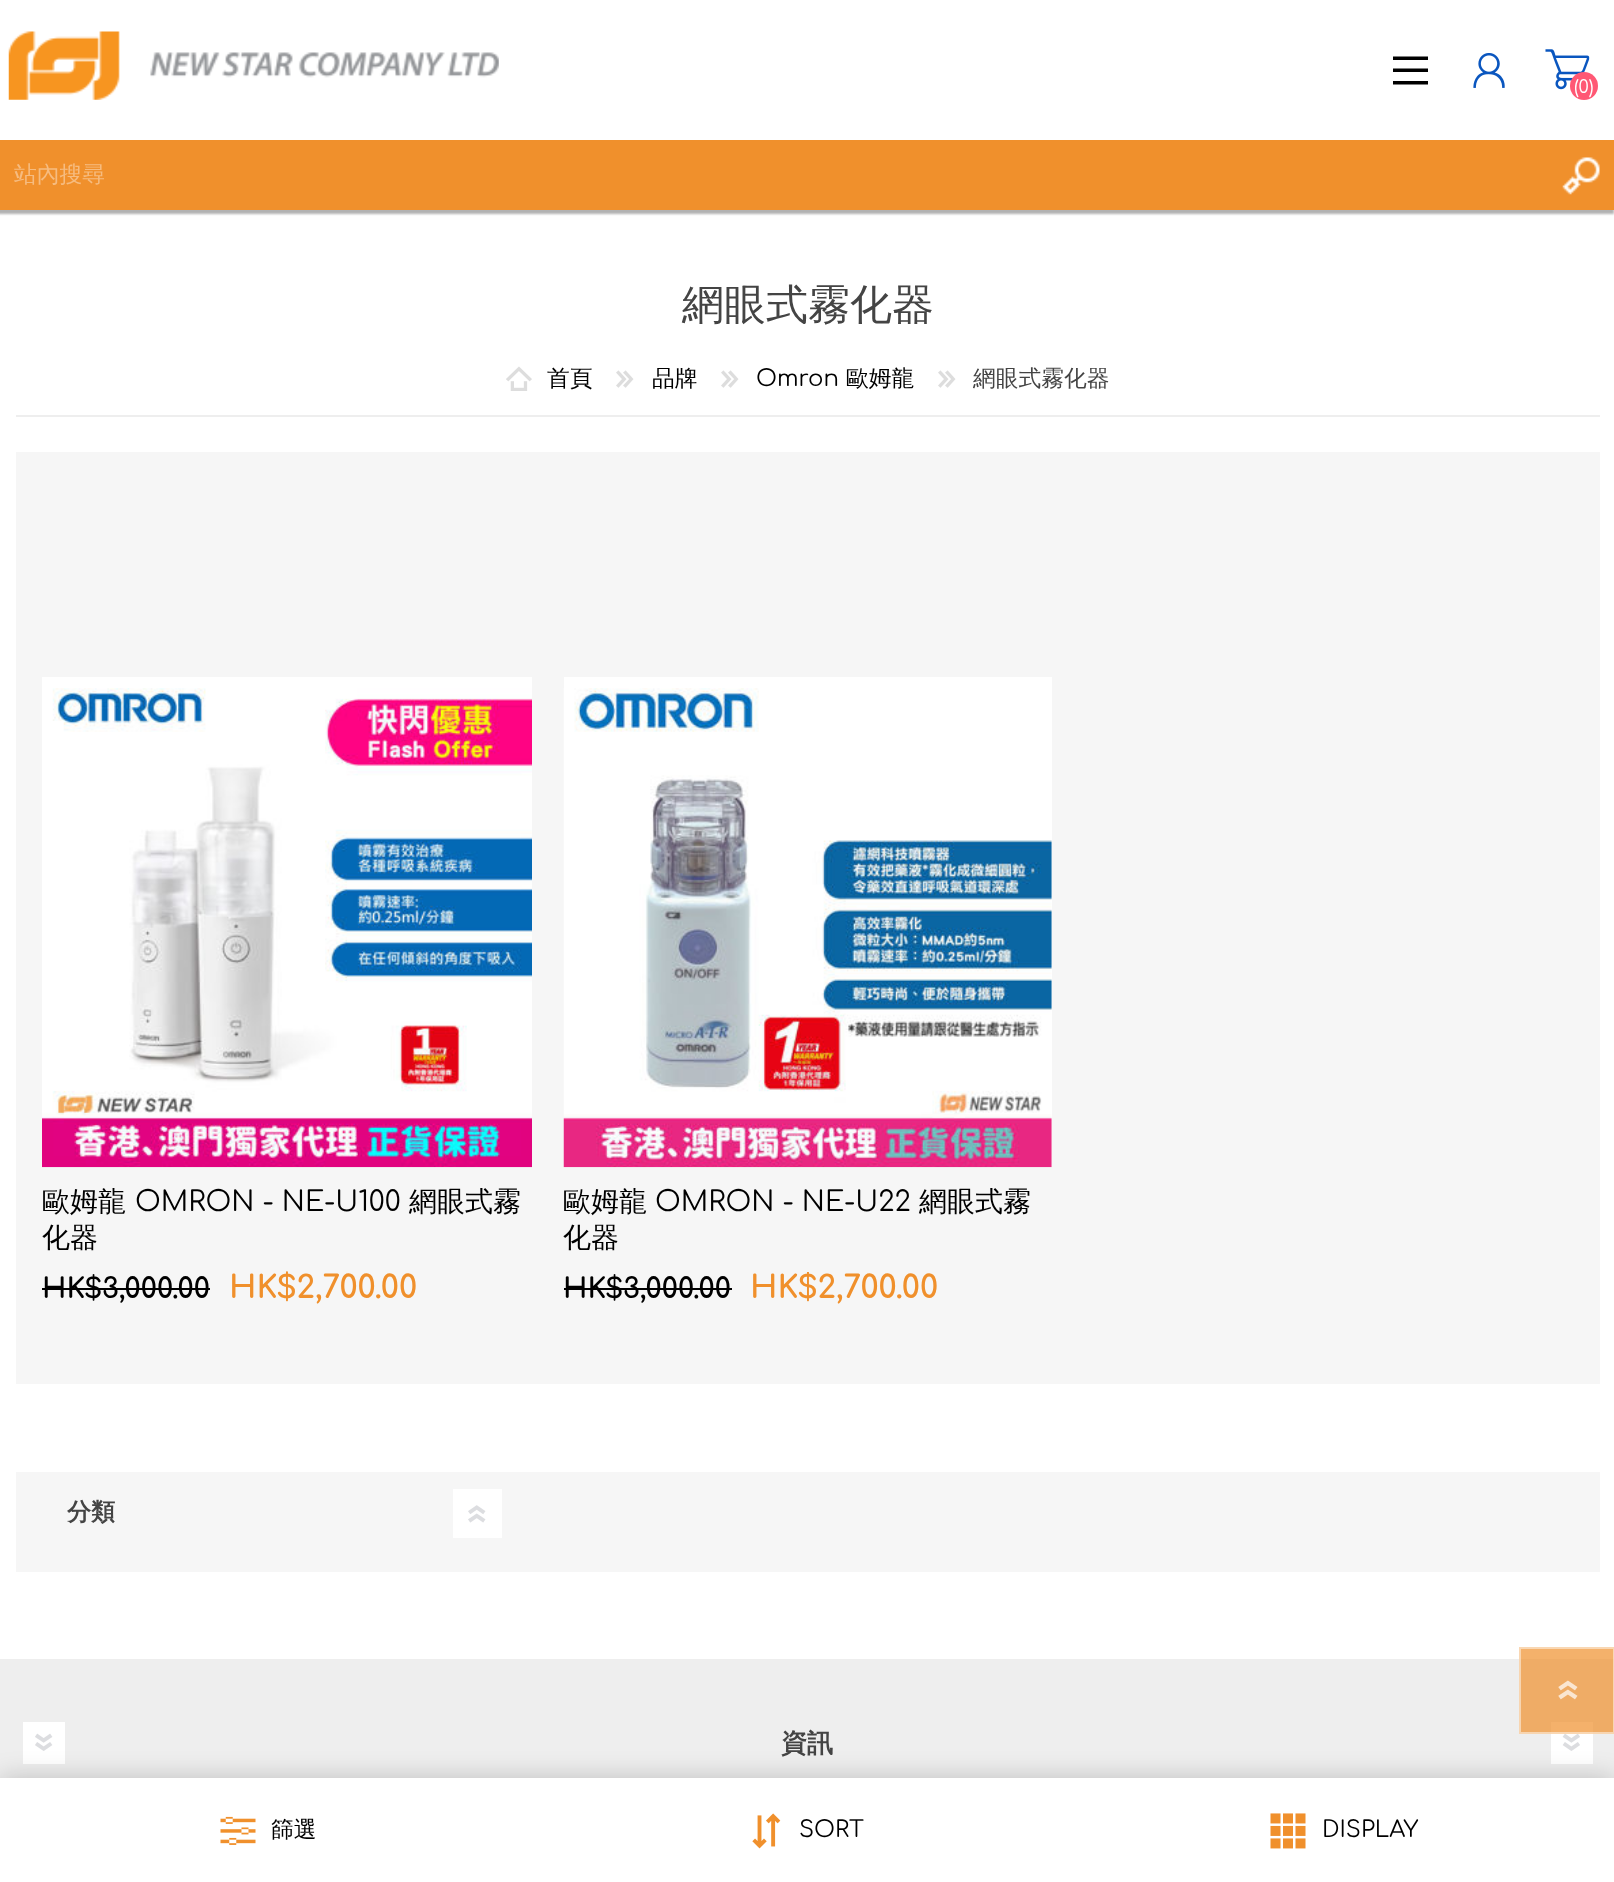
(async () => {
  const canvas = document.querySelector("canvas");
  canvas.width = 1614;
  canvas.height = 1882;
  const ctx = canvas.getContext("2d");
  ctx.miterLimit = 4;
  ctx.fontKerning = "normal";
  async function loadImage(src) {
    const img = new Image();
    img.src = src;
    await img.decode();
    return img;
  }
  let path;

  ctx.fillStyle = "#ffffff";
  ctx.fillRect(0, 0, 1614, 1882);
  ctx.fillStyle = "#000000";
  path = new Path2D("M1393 56.5V60H1428V56.5ZM1393 72H1428V68.5H1393ZM1393 84.5H1428V81H1393Z");
  ctx.fill(path);
  ctx.drawImage(await loadImage("img/1.png"), 1473, 53, 32, 35);
  ctx.drawImage(await loadImage("img/2.png"), 1545, 49, 45, 41);
  ctx.fillStyle = "#ff5874";
  ctx.beginPath();
  ctx.arc(1584, 86, 14, 0, Math.PI * 2);
  ctx.fill();
  ctx.drawImage(await loadImage("img/3.png"), 8, 31, 491, 69);
  ctx.fillStyle = "rgba(0, 0, 0, 0.3)";
  ctx.filter = "blur(1px)";
  ctx.beginPath();
  ctx.rect(-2, 144, 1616, 70);
  ctx.fill();
  ctx.filter = "none";
  ctx.fillStyle = "#f0902c";
  ctx.fillRect(0, 140, 1614, 70);
  ctx.drawImage(await loadImage("img/4.png"), 1562, 157, 38, 38);
  ctx.fillStyle = "#eeeeee";
  ctx.fillRect(16, 415, 1584, 2);
  ctx.drawImage(await loadImage("img/5.png"), 506, 366, 26, 25);
  ctx.drawImage(await loadImage("img/6.png"), 616, 370, 18, 18);
  ctx.drawImage(await loadImage("img/6.png"), 721, 370, 18, 18);
  ctx.drawImage(await loadImage("img/6.png"), 938, 370, 18, 18);
  ctx.fillStyle = "#f6f6f6";
  ctx.fillRect(16, 452, 1584, 932);
  ctx.fillStyle = "#ffffff";
  ctx.fillRect(42, 677, 490, 490);
  ctx.drawImage(await loadImage("img/7.png"), 42, 688, 490, 480);
  ctx.fillStyle = "#000000";
  ctx.fillRect(42, 1288, 168, 2);
  ctx.fillStyle = "#ffffff";
  ctx.fillRect(564, 677, 488, 490);
  ctx.drawImage(await loadImage("img/8.png"), 563, 688, 489, 480);
  for (const [x, y, w, h, color] of [
    [564, 1288, 168, 2, "#000000"],
    [16, 1472, 1584, 100, "#f6f6f6"],
    [453, 1489, 49, 49, "#ffffff"],
  ]) {
    ctx.fillStyle = color;
    ctx.fillRect(x, y, w, h);
  }
  ctx.drawImage(await loadImage("img/9.png"), 468, 1505, 18, 18);
  ctx.fillStyle = "#eeeeee";
  ctx.fillRect(0, 1659, 1614, 119);
  ctx.fillStyle = "#ffffff";
  ctx.fillRect(23, 1722, 42, 42);
  ctx.drawImage(await loadImage("img/10.png"), 35, 1733, 18, 18);
  ctx.fillRect(1551, 1722, 42, 42);
  ctx.drawImage(await loadImage("img/11.png"), 1562, 1733, 18, 18);
  ctx.fillStyle = "rgba(0, 0, 0, 0.2)";
  ctx.filter = "blur(13px)";
  ctx.beginPath();
  ctx.rect(0, 1778, 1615, 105);
  ctx.fill();
  ctx.filter = "none";
  ctx.fillStyle = "#ffffff";
  ctx.fillRect(0, 1778, 1614, 104);
  ctx.drawImage(await loadImage("img/12.png"), 220, 1816, 36, 29);
  ctx.drawImage(await loadImage("img/13.png"), 752, 1813, 29, 36);
  ctx.drawImage(await loadImage("img/14.png"), 1270, 1813, 36, 36);
  ctx.fillStyle = "rgba(240, 144, 44, 0.7)";
  ctx.fillRect(1519, 1647, 95, 87);
  ctx.strokeStyle = "rgba(255, 255, 255, 0.49)";
  ctx.lineWidth = 2;
  ctx.strokeRect(1520, 1648, 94, 85);
  ctx.drawImage(await loadImage("img/15.png"), 1558, 1680, 20, 20);
  ctx.font = "18px Comfortaa";
  ctx.fillStyle = "#ffffff";
  ctx.fillText("(0)", 1574, 93);
  ctx.font = "500 22.75px WenQuanYi Zen Hei";
  ctx.fillStyle = "#f6bc80";
  ctx.fillText("站內搜尋", 14, 182);
  ctx.font = "500 42px WenQuanYi Zen Hei";
  ctx.fillStyle = "#444444";
  ctx.fillText("網眼式霧化器", 682, 319);
  ctx.font = "500 22.75px WenQuanYi Zen Hei";
  ctx.fillStyle = "#000000";
  ctx.fillText("首頁", 547, 386);
  ctx.fillText("品牌", 652, 386);
  ctx.font = "22.75px Comfortaa";
  ctx.fillText("Omron", 756, 386);
  ctx.font = "500 22.75px WenQuanYi Zen Hei";
  ctx.fillText("歐姆龍", 846, 386);
  ctx.fillStyle = "#444444";
  ctx.fillText("網眼式霧化器", 973, 386);
  ctx.font = "500 28px WenQuanYi Zen Hei";
  ctx.fillStyle = "#000000";
  ctx.fillText("歐姆龍", 42, 1211);
  ctx.font = "28px Comfortaa";
  ctx.fillText("OMRON - NE-U100", 135, 1211);
  ctx.font = "500 28px WenQuanYi Zen Hei";
  ctx.fillText("網眼式霧", 409, 1211);
  ctx.fillText("化器", 42, 1247);
  ctx.font = "bold 28px Comfortaa";
  ctx.fillText("HK$3,000.00", 42, 1298);
  ctx.font = "bold 31.5px Comfortaa";
  ctx.fillStyle = "#f0902c";
  ctx.fillText("HK$2,700.00", 229, 1298);
  ctx.save();
  ctx.beginPath();
  ctx.rect(564, 1185, 488, 70);
  ctx.clip();
  ctx.font = "500 28px WenQuanYi Zen Hei";
  ctx.fillStyle = "#000000";
  ctx.fillText("歐姆龍", 563, 1211);
  ctx.restore();
  ctx.font = "28px Comfortaa";
  ctx.fillStyle = "#000000";
  ctx.fillText("OMRON - NE-U22", 655, 1211);
  ctx.font = "500 28px WenQuanYi Zen Hei";
  ctx.fillText("網眼式霧", 919, 1211);
  ctx.fillText("化器", 563, 1247);
  ctx.font = "bold 28px Comfortaa";
  ctx.fillText("HK$3,000.00", 563, 1298);
  ctx.save();
  ctx.beginPath();
  ctx.rect(564, 1272, 488, 60);
  ctx.clip();
  ctx.font = "bold 31.5px Comfortaa";
  ctx.fillStyle = "#f0902c";
  ctx.fillText("HK$2,700.00", 750, 1298);
  ctx.restore();
  ctx.font = "bold 24px WenQuanYi Zen Hei";
  ctx.fillStyle = "#444444";
  ctx.fillText("分類", 67, 1520);
  ctx.font = "bold 26px WenQuanYi Zen Hei";
  ctx.fillText("資訊", 781, 1752);
  ctx.font = "500 22.75px WenQuanYi Zen Hei";
  ctx.fillStyle = "#000000";
  ctx.fillText("篩選", 271, 1837);
  ctx.font = "22.75px Comfortaa";
  ctx.fillText("SORT", 799, 1837);
  ctx.fillText("DISPLAY", 1322, 1837);
})();
